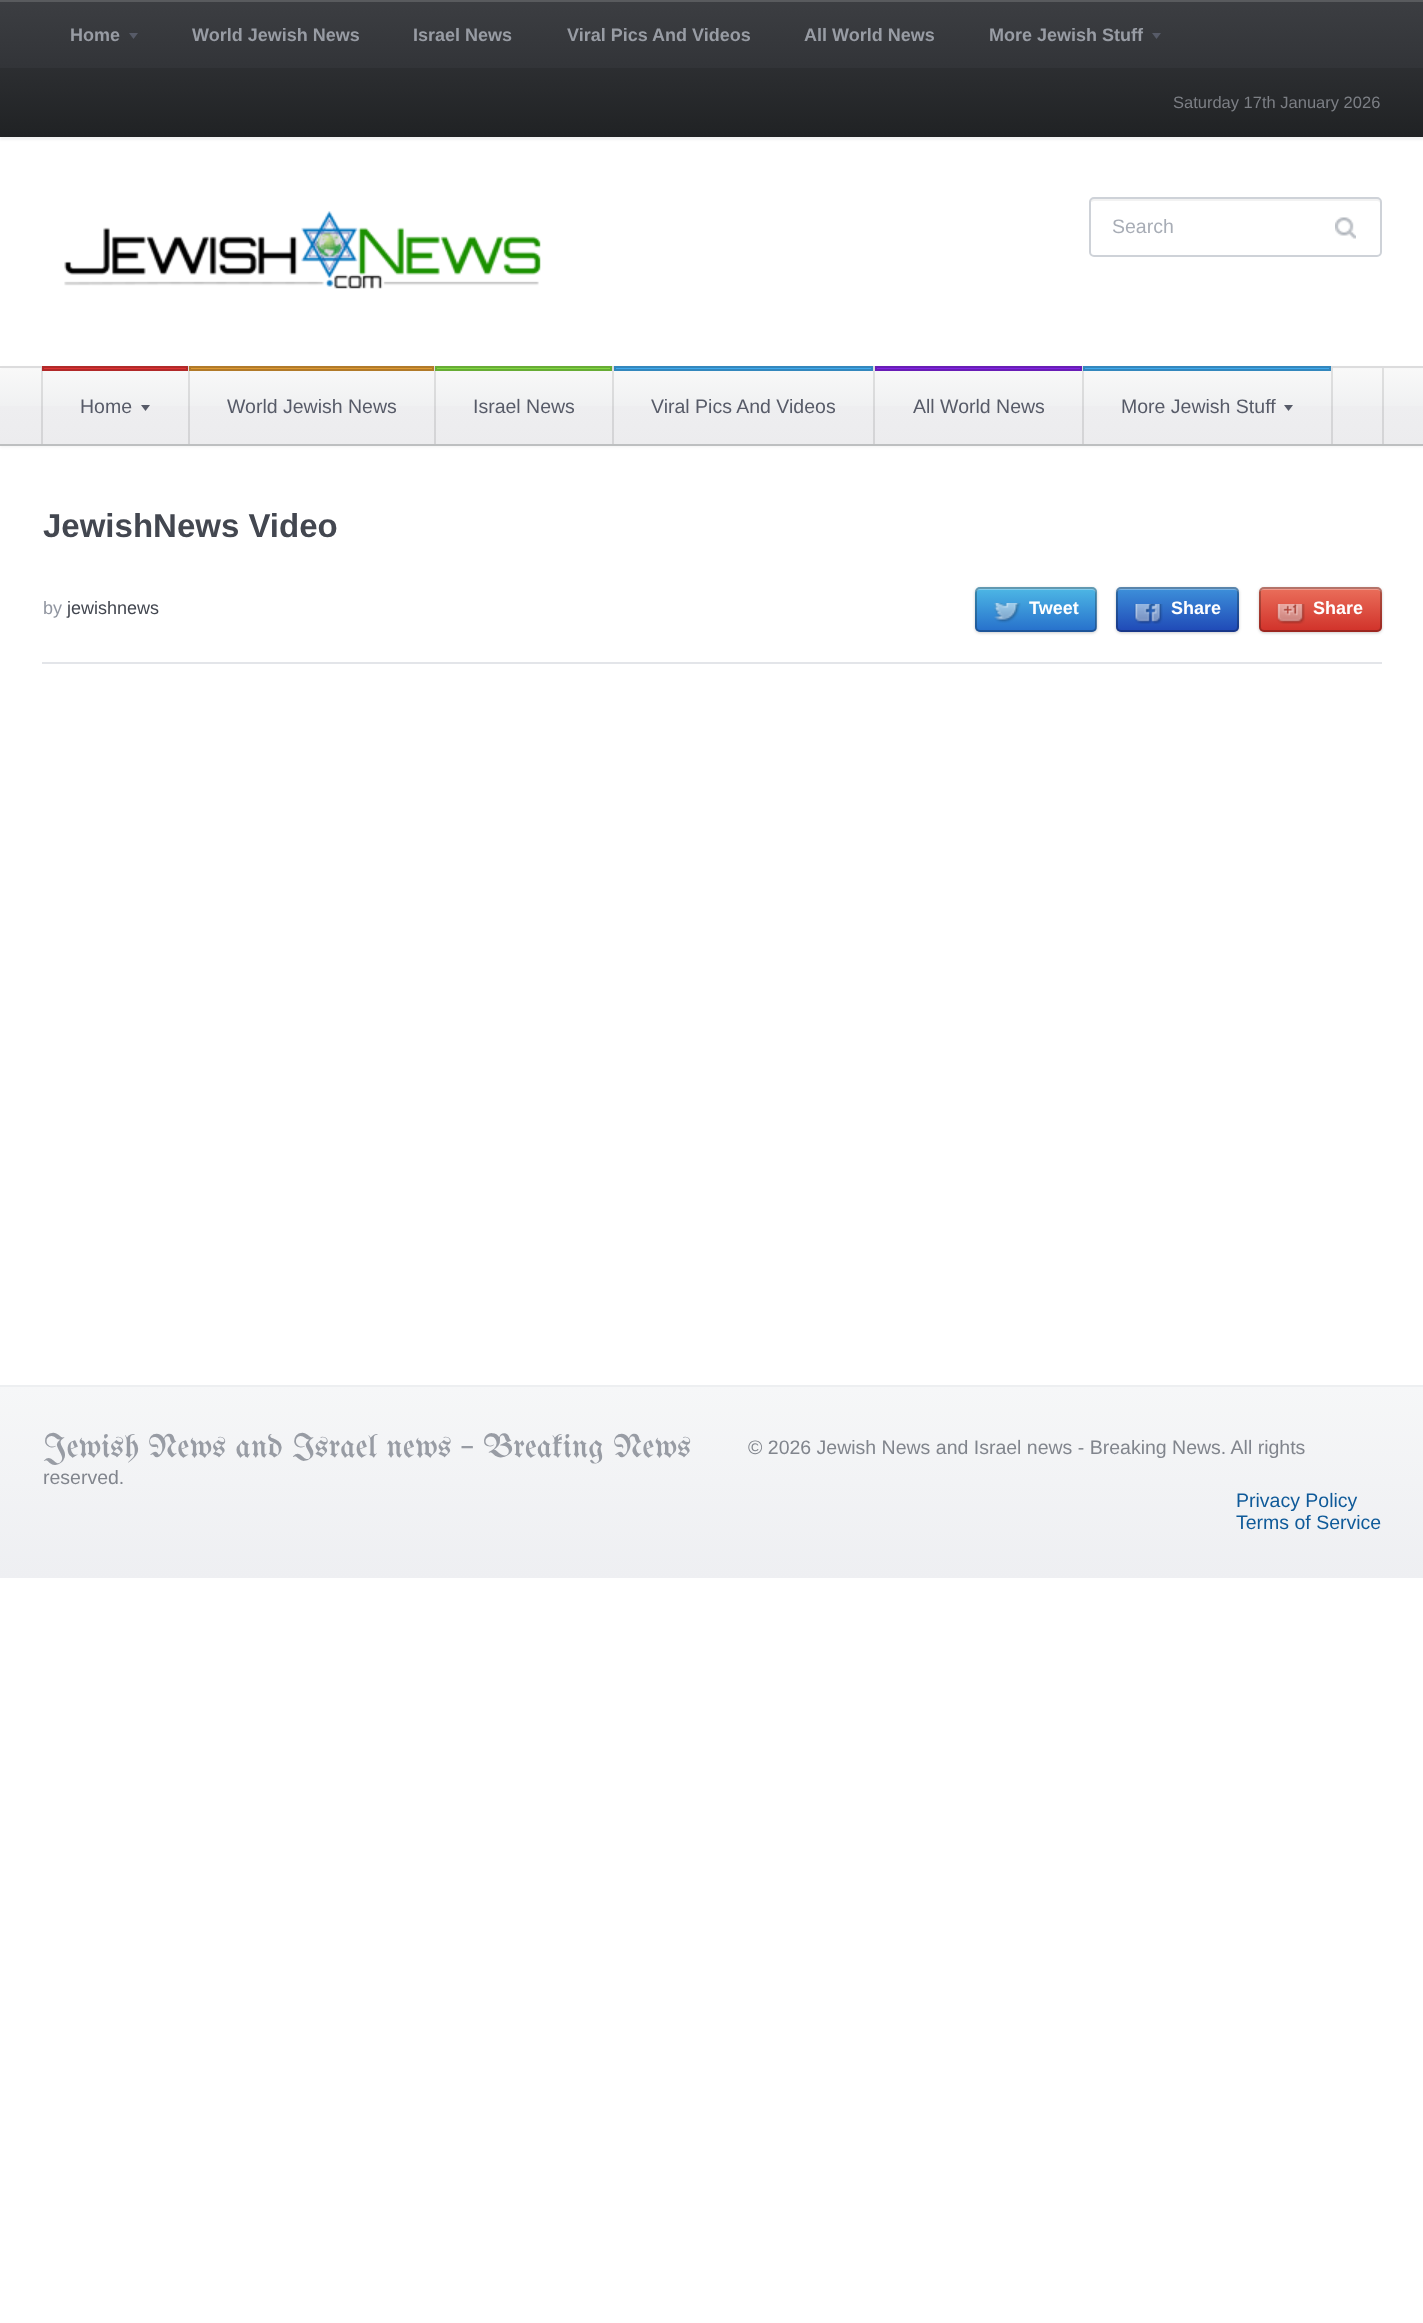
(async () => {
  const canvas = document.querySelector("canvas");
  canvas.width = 1423;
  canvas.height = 2323;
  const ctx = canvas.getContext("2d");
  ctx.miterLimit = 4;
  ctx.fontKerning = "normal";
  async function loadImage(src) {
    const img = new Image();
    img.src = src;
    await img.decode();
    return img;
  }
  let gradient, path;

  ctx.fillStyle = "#ffffff";
  ctx.fillRect(0, 0, 1423, 2323);
  ctx.fillStyle = "rgba(0, 0, 0, 0.05)";
  ctx.filter = "blur(1px)";
  ctx.beginPath();
  ctx.rect(0, 3, 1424, 137);
  ctx.fill();
  ctx.filter = "none";
  gradient = ctx.createLinearGradient(712, 0, 712, 137);
  gradient.addColorStop(0, "#3c3e42");
  gradient.addColorStop(0.5, "#323438");
  gradient.addColorStop(0.5, "#2c2e31");
  gradient.addColorStop(1, "#202224");
  ctx.fillStyle = gradient;
  ctx.fillRect(0, 2, 1423, 135);
  ctx.fillStyle = "#595b5e";
  ctx.fillRect(0, 0, 1423, 2);
  ctx.fillStyle = "#575b68";
  path = new Path2D("M129 33H138L133.5 39Z");
  ctx.fill(path);
  path = new Path2D("M1152 33H1161L1156.5 39Z");
  ctx.fill(path);
  ctx.drawImage(await loadImage("img/1.png"), 64, 211, 477, 78);
  ctx.fillStyle = "#f2f2f2";
  path = new Path2D("M1094 201H1377C1379 201 1380 202 1380 204C1380 202 1380 199 1378 198H1188C1098 198 1092 196 1091 200V202Z");
  ctx.fill(path);
  ctx.beginPath();
  ctx.roundRect(1090, 198, 291, 58, 4);
  ctx.strokeStyle = "#ced2d8";
  ctx.lineWidth = 2;
  ctx.stroke();
  ctx.drawImage(await loadImage("img/2.png"), 1335, 217, 21, 22);
  ctx.fillStyle = "rgba(0, 0, 0, 0.05)";
  ctx.filter = "blur(1.5px)";
  ctx.beginPath();
  ctx.rect(0, 368, 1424, 79);
  ctx.fill();
  ctx.filter = "none";
  gradient = ctx.createLinearGradient(712, 367, 712, 444);
  gradient.addColorStop(0, "#f9f9f9");
  gradient.addColorStop(0.5, "#f0f1f2");
  gradient.addColorStop(0.5, "#eeeef0");
  gradient.addColorStop(1, "#ececee");
  ctx.fillStyle = gradient;
  ctx.fillRect(0, 369, 1423, 75);
  gradient = ctx.createLinearGradient(712, 367, 712, 444);
  gradient.addColorStop(0, "#e0e0e0");
  gradient.addColorStop(0.5, "#d8d9da");
  gradient.addColorStop(0.5, "#d6d6d8");
  gradient.addColorStop(1, "#d4d4d6");
  ctx.fillStyle = gradient;
  ctx.fillRect(1331, 368, 2, 76);
  ctx.fillRect(1082, 368, 2, 76);
  ctx.fillRect(873, 368, 2, 76);
  ctx.fillRect(612, 368, 2, 76);
  ctx.fillRect(434, 368, 2, 76);
  ctx.fillRect(188, 368, 2, 76);
  ctx.fillRect(41, 368, 2, 76);
  ctx.fillRect(1382, 368, 2, 76);
  ctx.fillStyle = "#dcdcdd";
  ctx.fillRect(0, 366, 1423, 2);
  ctx.fillStyle = "#bdbfc0";
  ctx.fillRect(0, 444, 1423, 2);
  ctx.fillStyle = "#dd3333";
  ctx.beginPath();
  ctx.rect(43, 367, 144, 3);
  ctx.fill();
  ctx.strokeStyle = "#b12929";
  ctx.stroke();
  ctx.fillStyle = "#575b68";
  path = new Path2D("M141 405H150L145.5 411Z");
  ctx.fill(path);
  ctx.fillStyle = "#dd9933";
  ctx.beginPath();
  ctx.rect(190, 367, 243, 3);
  ctx.fill();
  ctx.strokeStyle = "#b17a29";
  ctx.stroke();
  ctx.fillStyle = "#81d742";
  ctx.beginPath();
  ctx.rect(436, 367, 175, 3);
  ctx.fill();
  ctx.strokeStyle = "#67ac35";
  ctx.stroke();
  ctx.fillStyle = "#40a9ec";
  ctx.beginPath();
  ctx.rect(615, 367, 257, 3);
  ctx.fill();
  ctx.strokeStyle = "#3387bd";
  ctx.stroke();
  ctx.fillStyle = "#8224e3";
  ctx.beginPath();
  ctx.rect(876, 367, 205, 3);
  ctx.fill();
  ctx.strokeStyle = "#681db6";
  ctx.stroke();
  ctx.fillStyle = "#40a9ec";
  ctx.beginPath();
  ctx.rect(1084, 367, 246, 3);
  ctx.fill();
  ctx.strokeStyle = "#3387bd";
  ctx.stroke();
  ctx.fillStyle = "#575b68";
  path = new Path2D("M1284 405H1293L1288.5 411Z");
  ctx.fill(path);
  ctx.fillStyle = "#e3e5e9";
  ctx.fillRect(42, 662, 1340, 2);
  ctx.fillStyle = "rgba(0, 0, 0, 0.2)";
  ctx.filter = "blur(1.5px)";
  ctx.beginPath();
  ctx.roundRect(975, 588, 122, 45, 5);
  ctx.fill();
  ctx.filter = "none";
  gradient = ctx.createLinearGradient(1036, 587, 1036, 632);
  gradient.addColorStop(0, "#4eb9e6");
  gradient.addColorStop(1, "#266fcb");
  ctx.fillStyle = gradient;
  ctx.beginPath();
  ctx.roundRect(975, 587, 122, 45, 5);
  ctx.fill();
  ctx.fillStyle = "rgba(255, 255, 255, 0.3)";
  path = new Path2D("M980 590H1092C1094 590 1096 592 1096 594V630C1097 629 1097 628 1097 627V592C1097 589 1095 587 1092 587H980C977 587 975 589 975 592V594C975 592 977 590 980 590Z");
  ctx.fill(path);
  ctx.beginPath();
  ctx.roundRect(976, 588, 120, 43, 4);
  ctx.strokeStyle = "rgba(0, 0, 0, 0.25)";
  ctx.stroke();
  ctx.drawImage(await loadImage("img/3.png"), 994, 603, 27, 20);
  ctx.fillStyle = "rgba(0, 0, 0, 0.2)";
  ctx.filter = "blur(1.5px)";
  ctx.beginPath();
  ctx.roundRect(1116, 588, 123, 45, 5);
  ctx.fill();
  ctx.filter = "none";
  gradient = ctx.createLinearGradient(1178, 587, 1178, 632);
  gradient.addColorStop(0, "#3e92db");
  gradient.addColorStop(1, "#1f48b6");
  ctx.fillStyle = gradient;
  ctx.beginPath();
  ctx.roundRect(1116, 587, 123, 45, 5);
  ctx.fill();
  ctx.fillStyle = "rgba(255, 255, 255, 0.3)";
  path = new Path2D("M1120 590H1234C1237 590 1239 592 1239 594V592C1239 589 1237 587 1234 587H1121C1118 587 1116 589 1116 592V594C1116 592 1118 590 1120 590Z");
  ctx.fill(path);
  ctx.beginPath();
  ctx.roundRect(1117, 588, 121, 43, 4);
  ctx.stroke();
  ctx.drawImage(await loadImage("img/4.png"), 1134, 604, 29, 20);
  ctx.fillStyle = "rgba(0, 0, 0, 0.2)";
  ctx.filter = "blur(1.5px)";
  ctx.beginPath();
  ctx.roundRect(1259, 588, 123, 45, 5);
  ctx.fill();
  ctx.filter = "none";
  gradient = ctx.createLinearGradient(1320, 587, 1320, 632);
  gradient.addColorStop(0, "#eb705c");
  gradient.addColorStop(1, "#d03129");
  ctx.fillStyle = gradient;
  ctx.beginPath();
  ctx.roundRect(1259, 587, 123, 45, 5);
  ctx.fill();
  ctx.fillStyle = "rgba(255, 255, 255, 0.3)";
  path = new Path2D("M1263 590H1377C1379 590 1382 592 1382 594V592C1382 589 1380 587 1377 587H1264C1261 587 1259 589 1259 592C1260 591 1262 590 1263 590Z");
  ctx.fill(path);
  ctx.beginPath();
  ctx.roundRect(1260, 588, 121, 43, 4);
  ctx.stroke();
  ctx.drawImage(await loadImage("img/5.png"), 1276, 604, 29, 20);
  gradient = ctx.createLinearGradient(712, 1386, 712, 1578);
  gradient.addColorStop(0, "#f6f7f8");
  gradient.addColorStop(1, "#eeeff2");
  ctx.fillStyle = gradient;
  ctx.fillRect(0, 1387, 1423, 191);
  ctx.fillStyle = "#edeff1";
  ctx.fillRect(0, 1385, 1423, 2);
  ctx.font = "bold 18px Liberation Sans";
  ctx.fillStyle = "#989ca4";
  for (const [text, x, y] of [
    ["Home", 70, 41],
    ["World Jewish News", 192, 41],
    ["Israel News", 413, 41],
    ["Viral Pics And Videos", 567, 41],
    ["All World News", 804, 41],
    ["More Jewish Stuff", 989, 41],
  ]) {
    ctx.fillText(text, x, y);
  }
  ctx.font = "16.5px Liberation Sans";
  ctx.fillStyle = "#7c7f85";
  ctx.fillText("Saturday 17th January 2026", 1173, 108);
  ctx.font = "19.5px Liberation Sans";
  ctx.fillStyle = "#a8adb6";
  ctx.fillText("Search", 1112, 233);
  ctx.fillStyle = "#575b68";
  for (const [text, x, y] of [
    ["Home", 80, 413],
    ["World Jewish News", 227, 413],
    ["Israel News", 473, 413],
    ["Viral Pics And Videos", 651, 413],
    ["All World News", 913, 413],
    ["More Jewish Stuff", 1121, 413],
  ]) {
    ctx.fillText(text, x, y);
  }
  ctx.font = "bold 33px Liberation Sans";
  ctx.fillStyle = "#434750";
  ctx.fillText("JewishNews Video", 43, 537);
  ctx.font = "18px Liberation Sans";
  ctx.fillStyle = "#9196a1";
  ctx.fillText("by", 43, 614);
  ctx.fillStyle = "#434750";
  ctx.fillText("jewishnews", 67, 614);
  ctx.font = "bold 18px Liberation Sans";
  ctx.fillStyle = "#ffffff";
  for (const [text, x, y] of [
    ["Tweet", 1029, 614],
    ["Share", 1171, 614],
    ["Share", 1313, 614],
  ]) {
    ctx.fillText(text, x, y);
  }
  ctx.font = "33px UnifrakturMaguntia";
  ctx.fillStyle = "#989ca4";
  ctx.fillText("Jewish News and Israel news – Breaking News", 43, 1457);
  ctx.font = "19.5px Liberation Sans";
  ctx.fillStyle = "#81858d";
  ctx.fillText("© 2026 Jewish News and Israel news - Breaking News. All rights", 748, 1454);
  ctx.fillText("reserved.", 43, 1484);
  ctx.fillStyle = "#0f5a99";
  ctx.fillText("Privacy Policy", 1236, 1507);
  ctx.fillText("Terms of Service", 1236, 1529);
})();
